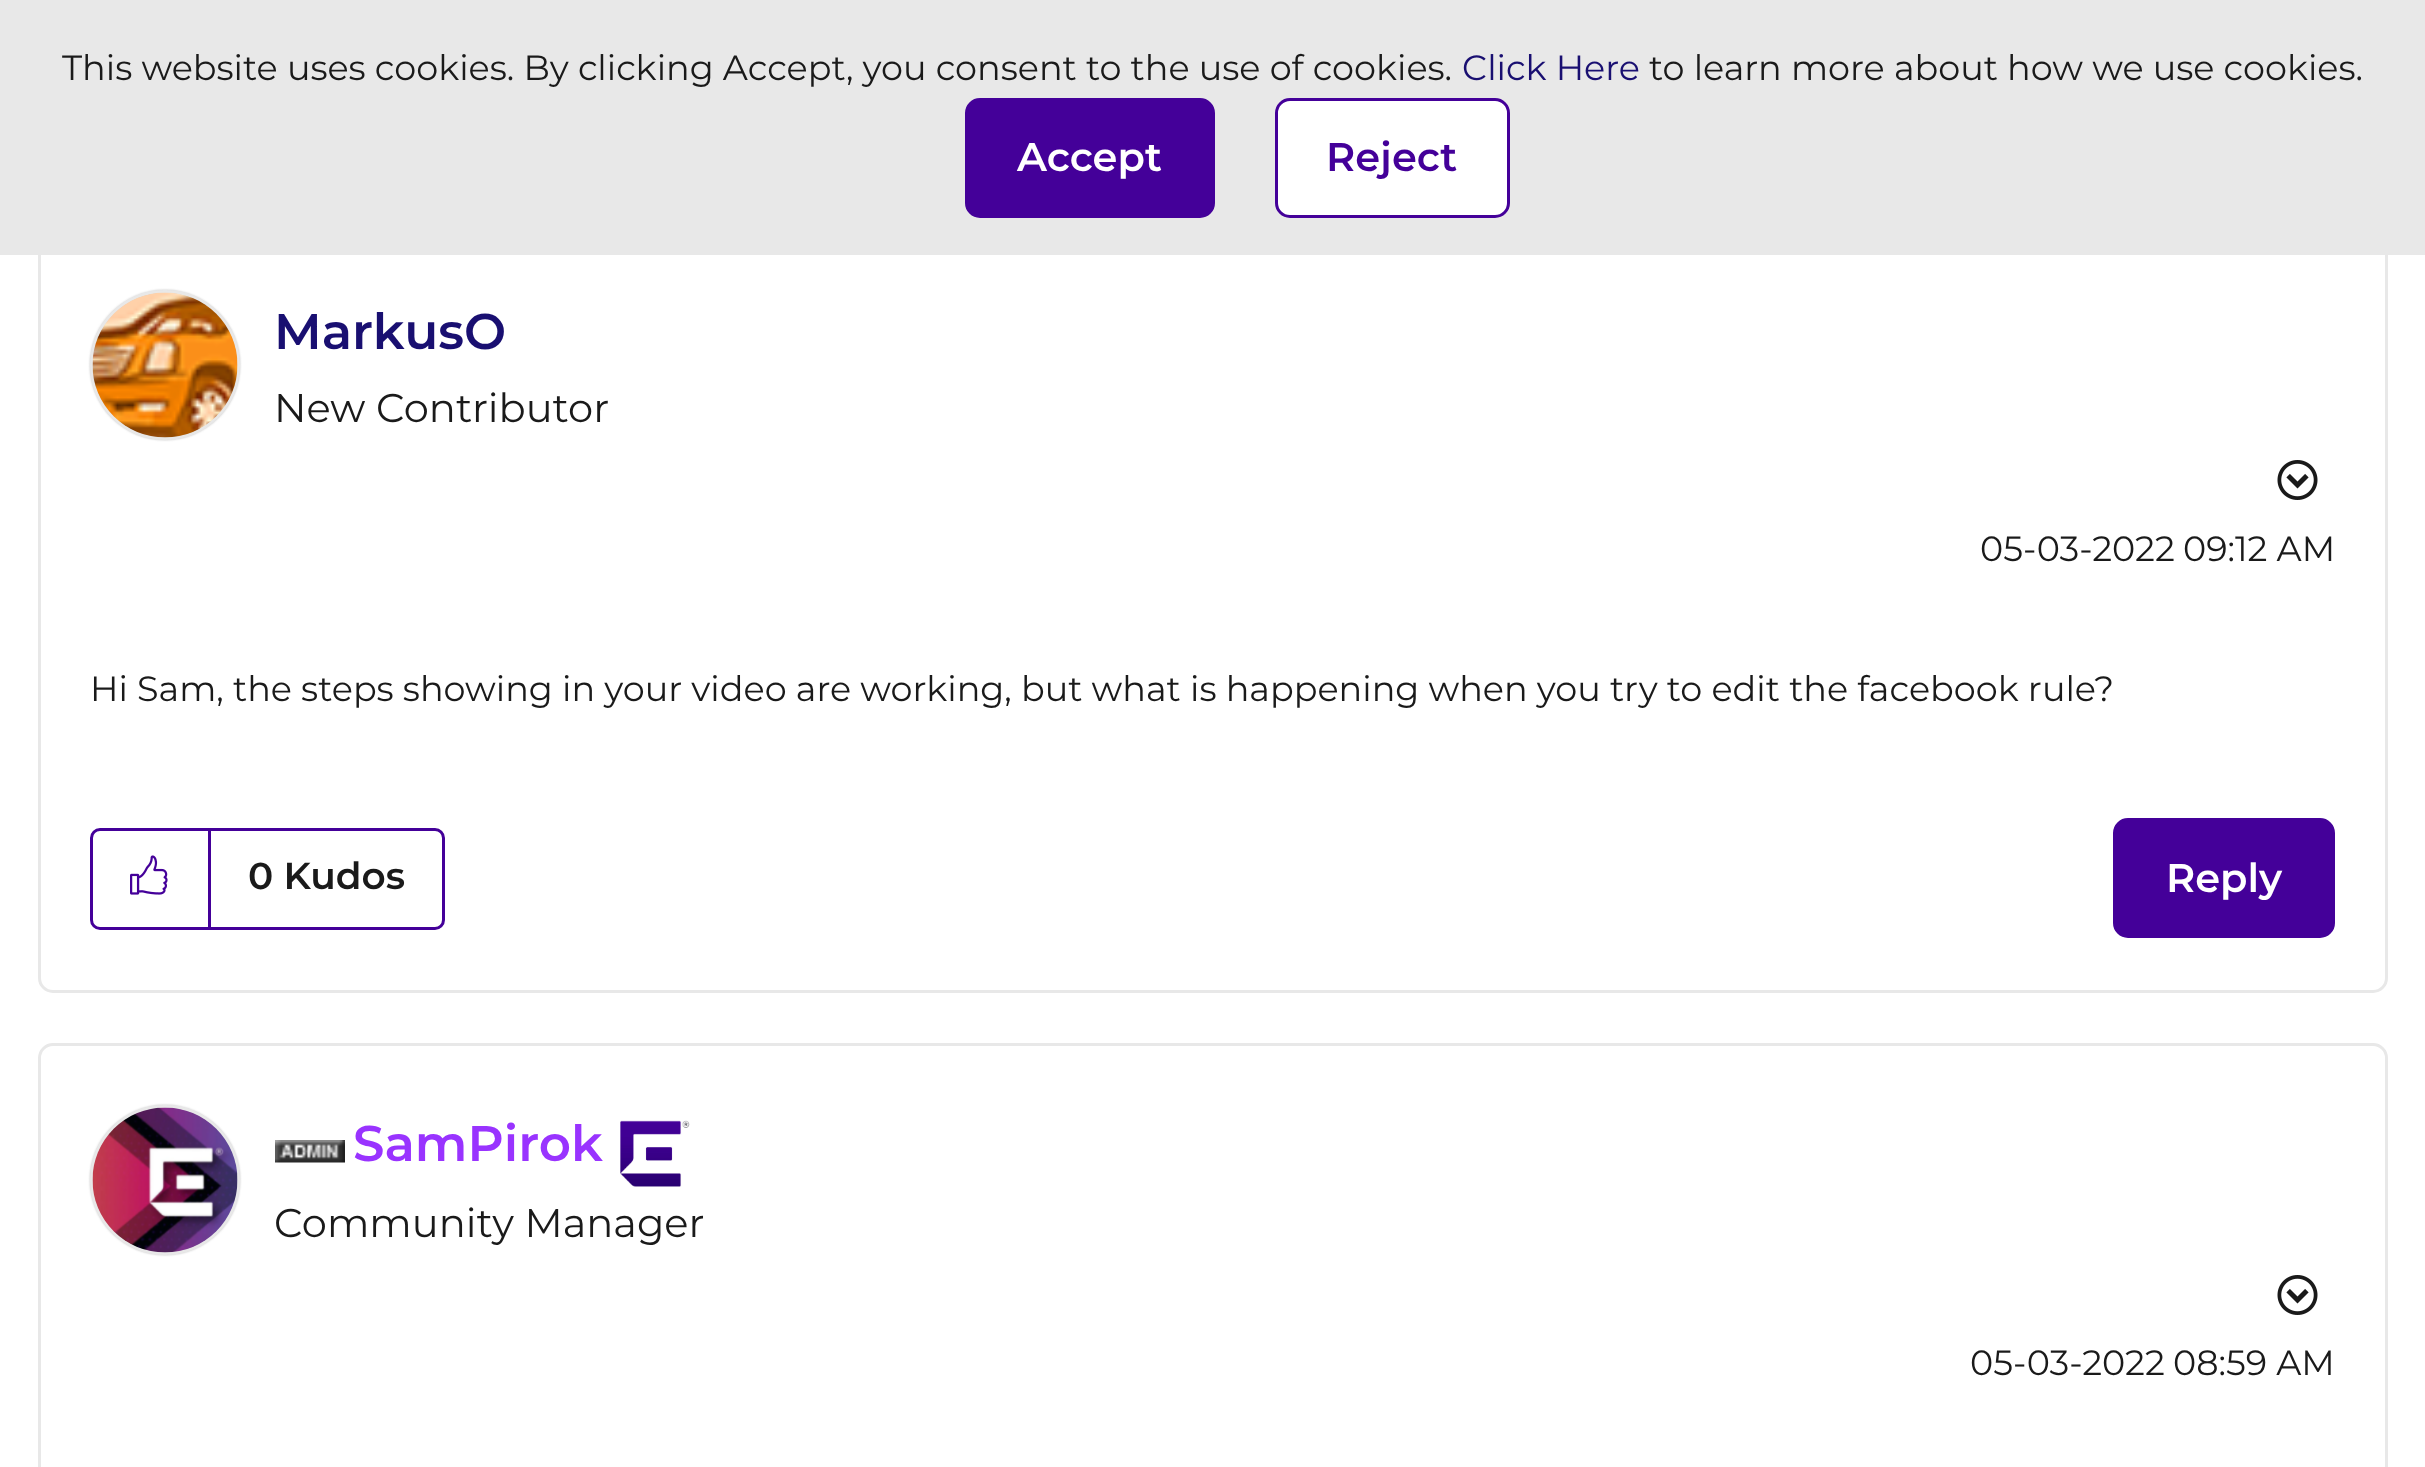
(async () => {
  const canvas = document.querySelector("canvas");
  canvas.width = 2425;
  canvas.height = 1467;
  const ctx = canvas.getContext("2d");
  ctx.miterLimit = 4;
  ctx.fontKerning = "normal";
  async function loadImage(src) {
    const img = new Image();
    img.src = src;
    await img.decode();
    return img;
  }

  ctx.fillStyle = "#ffffff";
  ctx.fillRect(0, 0, 2425, 1467);
  ctx.beginPath();
  ctx.roundRect(39.5, 234.5, 2347, 757, 13.5);
  ctx.strokeStyle = "#e8e8e8";
  ctx.lineWidth = 3;
  ctx.stroke();
  ctx.fillStyle = "#e8e8e8";
  ctx.fillRect(0, 0, 2425, 255);
  ctx.fillStyle = "#440099";
  ctx.beginPath();
  ctx.roundRect(966.5, 99.5, 247, 117, 13.5);
  ctx.fill();
  ctx.strokeStyle = "#440099";
  ctx.stroke();
  ctx.fillStyle = "#ffffff";
  ctx.beginPath();
  ctx.roundRect(1276.5, 99.5, 232, 117, 13.5);
  ctx.fill();
  ctx.stroke();
  ctx.fillStyle = "#c4c4c4";
  ctx.filter = "blur(1px)";
  ctx.beginPath();
  ctx.roundRect(90, 290, 150, 150, 75);
  ctx.fill();
  ctx.filter = "none";
  ctx.beginPath();
  ctx.arc(165, 365, 73.5, 0, Math.PI * 2);
  ctx.strokeStyle = "#e8e8e8";
  ctx.stroke();
  ctx.drawImage(await loadImage("img/1.png"), 92, 292, 146, 146);
  ctx.drawImage(await loadImage("img/2.png"), 2277, 460, 41, 40);
  ctx.beginPath();
  ctx.roundRect(91.5, 829.5, 352, 99, 8.5);
  ctx.strokeStyle = "#440099";
  ctx.stroke();
  ctx.fillStyle = "#440099";
  ctx.fillRect(208, 830, 3, 98);
  ctx.drawImage(await loadImage("img/3.png"), 130, 855, 38, 40);
  ctx.beginPath();
  ctx.roundRect(2114.5, 819.5, 219, 117, 13.5);
  ctx.fill();
  ctx.stroke();
  ctx.beginPath();
  ctx.roundRect(39.5, 1044.5, 2347, 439, 13.5);
  ctx.strokeStyle = "#e8e8e8";
  ctx.stroke();
  ctx.fillStyle = "#c4c4c4";
  ctx.filter = "blur(1px)";
  ctx.beginPath();
  ctx.roundRect(90, 1105, 150, 150, 75);
  ctx.fill();
  ctx.filter = "none";
  ctx.beginPath();
  ctx.arc(165, 1180, 73.5, 0, Math.PI * 2);
  ctx.stroke();
  ctx.drawImage(await loadImage("img/4.png"), 92, 1107, 146, 146);
  ctx.drawImage(await loadImage("img/5.png"), 275, 1140, 70, 23);
  ctx.drawImage(await loadImage("img/6.png"), 620, 1120, 70, 67);
  ctx.drawImage(await loadImage("img/2.png"), 2277, 1275, 41, 40);
  ctx.font = "100 35px 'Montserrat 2'";
  ctx.fillStyle = "#1a1a1a";
  ctx.fillText("This website uses cookies. By clicking Accept, you consent to the use of cookies.", 62, 80);
  ctx.fillStyle = "#190f71";
  ctx.fillText("Click Here", 1462, 80);
  ctx.fillStyle = "#1a1a1a";
  ctx.fillText("to learn more about how we use cookies.", 1649, 80);
  ctx.font = "100 40px Montserrat";
  ctx.fillStyle = "#ffffff";
  ctx.fillText("Accept", 1017, 171);
  ctx.fillStyle = "#440099";
  ctx.fillText("Reject", 1326, 171);
  ctx.font = "100 50px Montserrat";
  ctx.fillStyle = "#190f71";
  ctx.fillText("MarkusO", 274, 349);
  ctx.font = "100 40px 'Montserrat 2'";
  ctx.fillStyle = "#1a1a1a";
  ctx.fillText("New Contributor", 274, 422);
  ctx.font = "100 35px 'Montserrat 2'";
  for (const [text, x, y] of [
    ["05-03-2022", 1980, 561],
    ["09:12 AM", 2183, 561],
    ["Hi Sam, the steps showing in your video are working, but what is happening when you try to edit the facebook rule?", 90, 701],
  ]) {
    ctx.fillText(text, x, y);
  }
  ctx.font = "100 37.5px Montserrat";
  ctx.fillText("0 Kudos", 248, 889);
  ctx.font = "100 40px Montserrat";
  ctx.fillStyle = "#ffffff";
  ctx.fillText("Reply", 2166, 892);
  ctx.font = "100 50px Montserrat";
  ctx.fillStyle = "#9933ff";
  ctx.fillText("SamPirok", 353, 1161);
  ctx.font = "100 40px 'Montserrat 2'";
  ctx.fillStyle = "#1a1a1a";
  ctx.fillText("Community Manager", 274, 1237);
  ctx.font = "100 35px 'Montserrat 2'";
  ctx.fillText("05-03-2022", 1970, 1375);
  ctx.fillText("08:59 AM", 2173, 1375);
})();
